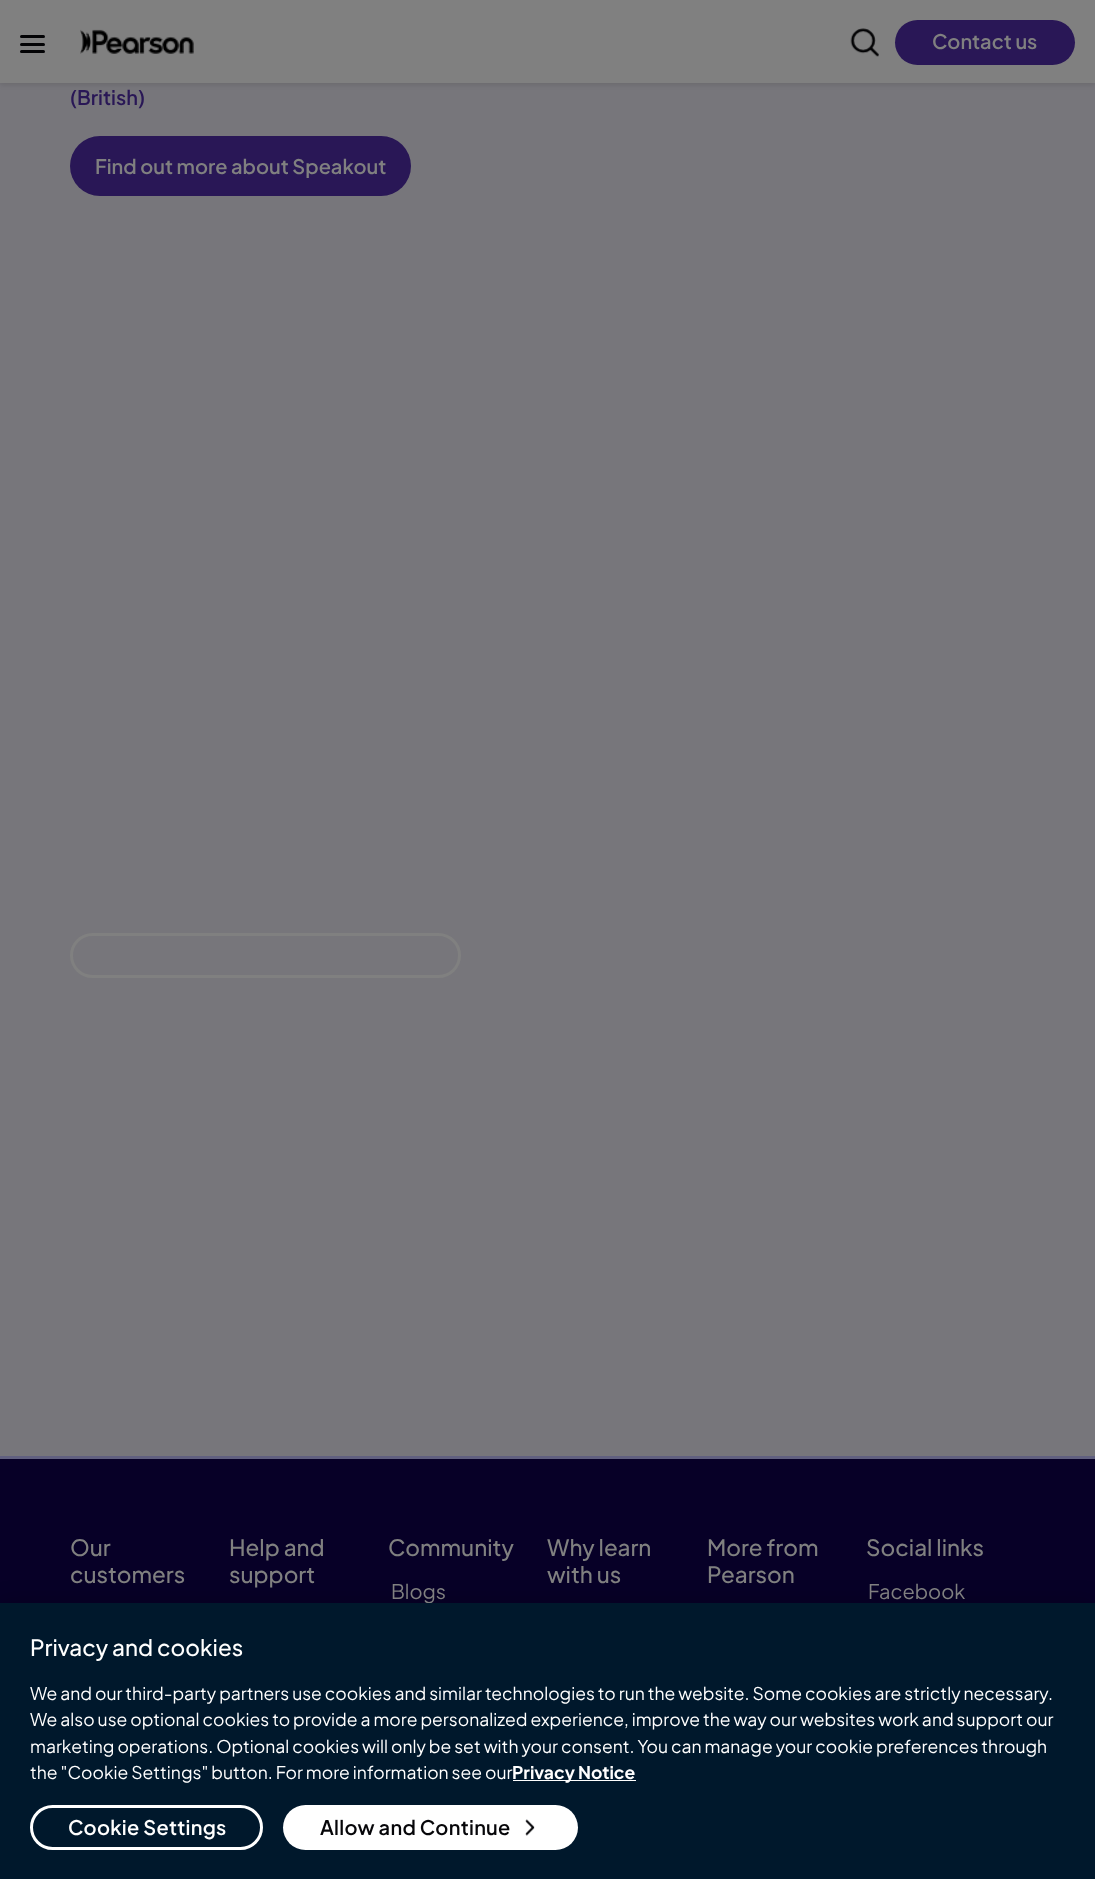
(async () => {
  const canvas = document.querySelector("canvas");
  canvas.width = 1095;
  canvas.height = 1879;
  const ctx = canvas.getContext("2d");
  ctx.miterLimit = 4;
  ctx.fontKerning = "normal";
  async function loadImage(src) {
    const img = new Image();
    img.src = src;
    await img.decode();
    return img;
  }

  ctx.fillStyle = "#77767b";
  ctx.fillRect(0, 0, 1095, 1879);
  ctx.fillStyle = "rgba(0, 0, 0, 0.1)";
  ctx.filter = "blur(2.5px)";
  ctx.beginPath();
  ctx.rect(0, 3, 1095, 82);
  ctx.fill();
  ctx.filter = "none";
  ctx.fillStyle = "#808080";
  ctx.fillRect(0, 0, 1095, 83);
  ctx.fillStyle = "#030305";
  ctx.beginPath();
  ctx.roundRect(20, 43, 25, 3, 1.5);
  ctx.fill();
  ctx.beginPath();
  ctx.roundRect(20, 35, 25, 3, 1.5);
  ctx.fill();
  ctx.beginPath();
  ctx.roundRect(20, 50, 25, 3, 1.5);
  ctx.fill();
  ctx.drawImage(await loadImage("img/1.png"), 80, 29, 114, 25);
  ctx.drawImage(await loadImage("img/2.png"), 850, 28, 29, 29);
  ctx.fillStyle = "#291756";
  ctx.beginPath();
  ctx.roundRect(895, 20, 180, 45, 22.5);
  ctx.fill();
  ctx.beginPath();
  ctx.roundRect(70, 136, 341, 60, 30);
  ctx.fill();
  ctx.beginPath();
  ctx.roundRect(71.5, 934.5, 388, 42, 21);
  ctx.strokeStyle = "#808080";
  ctx.lineWidth = 3;
  ctx.stroke();
  ctx.fillStyle = "#616080";
  ctx.fillRect(0, 1456, 1095, 3);
  ctx.fillStyle = "#070027";
  ctx.fillRect(0, 1459, 1095, 144);
  ctx.fillStyle = "rgba(0, 0, 0, 0.2)";
  ctx.filter = "blur(11px)";
  ctx.beginPath();
  ctx.rect(0, 1603, 1095, 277);
  ctx.fill();
  ctx.filter = "none";
  ctx.font = "600 20px Plus Jakarta Sans";
  ctx.fillStyle = "#808080";
  ctx.fillText("Contact us", 932, 49);
  ctx.fillStyle = "#291756";
  ctx.fillText("(British)", 70, 105);
  ctx.fillStyle = "#808080";
  ctx.fillText("Find out more about Speakout", 95, 174);
  ctx.font = "500 22.5px Plus Jakarta Sans";
  for (const [text, x, y] of [
    ["Our", 70, 1556],
    ["customers", 70, 1583],
    ["Help and", 229, 1556],
    ["support", 229, 1583],
    ["Community", 388, 1556],
  ]) {
    ctx.fillText(text, x, y);
  }
  ctx.font = "20px Plus Jakarta Sans";
  ctx.fillText("Blogs", 391, 1599);
  ctx.font = "500 22.5px Plus Jakarta Sans";
  for (const [text, x, y] of [
    ["Why learn", 547, 1556],
    ["with us", 547, 1583],
    ["More from", 707, 1556],
    ["Pearson", 707, 1583],
    ["Social links", 866, 1556],
  ]) {
    ctx.fillText(text, x, y);
  }
  ctx.font = "20px Plus Jakarta Sans";
  ctx.fillText("Facebook", 868, 1599);
  ctx.fillStyle = "#00182c";
  ctx.fillRect(0, 1603, 1095, 276);
  ctx.font = "500 22.5px Plus Jakarta Sans";
  ctx.fillStyle = "#ffffff";
  ctx.fillText("Privacy and cookies", 30, 1656);
  ctx.font = "17.5px Plus Jakarta Sans";
  for (const [text, x, y] of [
    ["We and our third-party partners use cookies and similar technologies to run the website. Some cookies are strictly necessary.", 30, 1700],
    ["We also use optional cookies to provide a more personalized experience, improve the way our websites work and support our", 30, 1726],
    ["marketing operations. Optional cookies will only be set with your consent. You can manage your cookie preferences through", 30, 1753],
    ["the \"Cookie Settings\" button. For more information see our", 30, 1779],
  ]) {
    ctx.fillText(text, x, y);
  }
  ctx.fillRect(513, 1780, 123, 1);
  ctx.font = "bold 17.5px Plus Jakarta Sans";
  ctx.fillText("Privacy Notice", 512, 1779);
  ctx.beginPath();
  ctx.roundRect(31.5, 1806.5, 230, 42, 21);
  ctx.strokeStyle = "#ffffff";
  ctx.stroke();
  ctx.letterSpacing = "0.25px";
  ctx.font = "600 20px Plus Jakarta Sans";
  ctx.fillText("Cookie Settings", 68, 1835);
  ctx.beginPath();
  ctx.roundRect(283, 1805, 295, 45, 22.5);
  ctx.fill();
  ctx.fillStyle = "#060609";
  ctx.fillText("Allow and Continue", 320, 1835);
  ctx.drawImage(await loadImage("img/3.png"), 525, 1819, 10, 17);
})();
